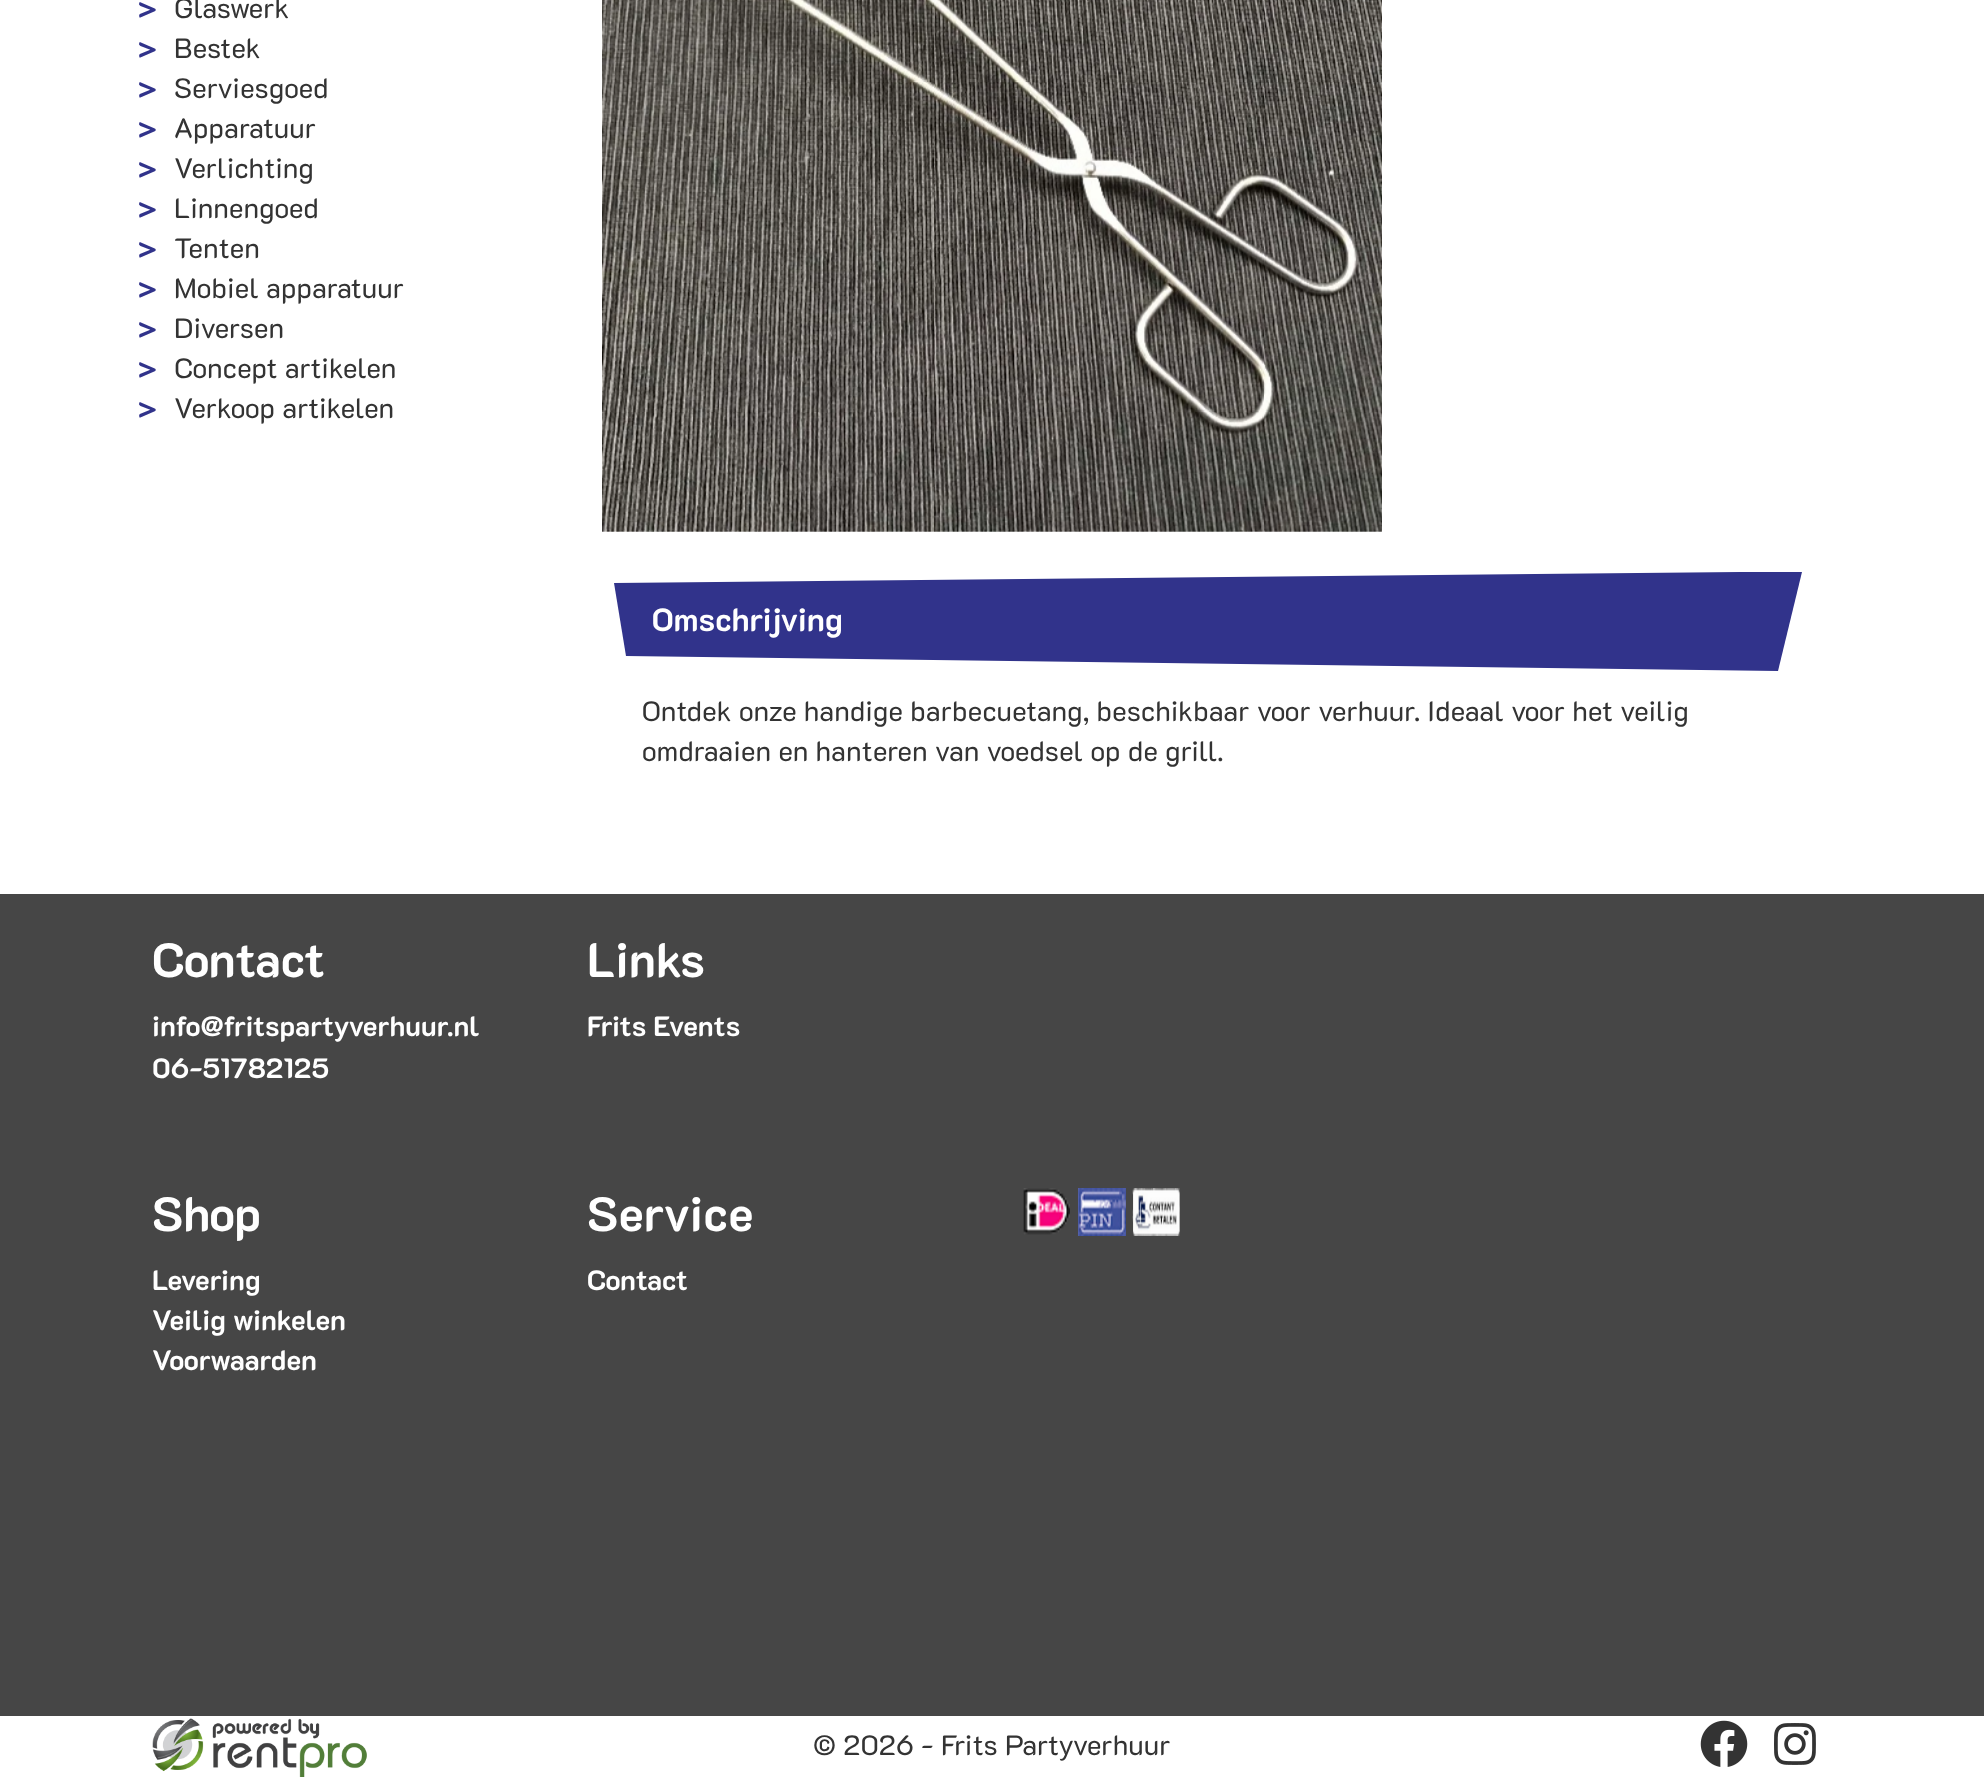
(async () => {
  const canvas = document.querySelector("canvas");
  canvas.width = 1984;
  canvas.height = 1777;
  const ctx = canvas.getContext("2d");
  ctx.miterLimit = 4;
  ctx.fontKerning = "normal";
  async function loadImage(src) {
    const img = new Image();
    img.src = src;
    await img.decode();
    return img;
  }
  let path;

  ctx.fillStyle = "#ffffff";
  ctx.fillRect(0, 0, 1984, 1777);
  ctx.drawImage(await loadImage("img/1.png"), 602, 0, 780, 532);
  ctx.fillStyle = "#31338b";
  path = new Path2D("M614 583L626 656L1778 671L1802 572H1740Z");
  ctx.fill(path);
  ctx.fillStyle = "#464646";
  ctx.fillRect(0, 894, 1984, 822);
  ctx.drawImage(await loadImage("img/2.png"), 1023, 1188, 47, 47);
  ctx.drawImage(await loadImage("img/3.png"), 1078, 1188, 48, 48);
  ctx.drawImage(await loadImage("img/4.png"), 1132, 1188, 48, 48);
  ctx.drawImage(await loadImage("img/5.png"), 152, 1718, 215, 59);
  ctx.drawImage(await loadImage("img/6.png"), 1700, 1720, 48, 47);
  ctx.drawImage(await loadImage("img/7.png"), 1774, 1723, 42, 42);
  ctx.font = "bold 28px 'K2D'";
  ctx.fillStyle = "#31338b";
  ctx.fillText(">", 138, 18);
  ctx.font = "28px 'K2D'";
  ctx.fillStyle = "#333333";
  ctx.fillText("Glaswerk", 174, 18);
  ctx.font = "bold 28px 'K2D'";
  ctx.fillStyle = "#31338b";
  ctx.fillText(">", 138, 58);
  ctx.font = "28px 'K2D'";
  ctx.fillStyle = "#333333";
  ctx.fillText("Bestek", 174, 58);
  ctx.font = "bold 28px 'K2D'";
  ctx.fillStyle = "#31338b";
  ctx.fillText(">", 138, 98);
  ctx.font = "28px 'K2D'";
  ctx.fillStyle = "#333333";
  ctx.fillText("Serviesgoed", 174, 98);
  ctx.font = "bold 28px 'K2D'";
  ctx.fillStyle = "#31338b";
  ctx.fillText(">", 138, 138);
  ctx.font = "28px 'K2D'";
  ctx.fillStyle = "#333333";
  ctx.fillText("Apparatuur", 174, 138);
  ctx.font = "bold 28px 'K2D'";
  ctx.fillStyle = "#31338b";
  ctx.fillText(">", 138, 178);
  ctx.font = "28px 'K2D'";
  ctx.fillStyle = "#333333";
  ctx.fillText("Verlichting", 174, 178);
  ctx.font = "bold 28px 'K2D'";
  ctx.fillStyle = "#31338b";
  ctx.fillText(">", 138, 218);
  ctx.font = "28px 'K2D'";
  ctx.fillStyle = "#333333";
  ctx.fillText("Linnengoed", 174, 218);
  ctx.font = "bold 28px 'K2D'";
  ctx.fillStyle = "#31338b";
  ctx.fillText(">", 138, 258);
  ctx.font = "28px 'K2D'";
  ctx.fillStyle = "#333333";
  ctx.fillText("Tenten", 174, 258);
  ctx.font = "bold 28px 'K2D'";
  ctx.fillStyle = "#31338b";
  ctx.fillText(">", 138, 298);
  ctx.font = "28px 'K2D'";
  ctx.fillStyle = "#333333";
  ctx.fillText("Mobiel apparatuur", 174, 298);
  ctx.font = "bold 28px 'K2D'";
  ctx.fillStyle = "#31338b";
  ctx.fillText(">", 138, 338);
  ctx.font = "28px 'K2D'";
  ctx.fillStyle = "#333333";
  ctx.fillText("Diversen", 174, 338);
  ctx.font = "bold 28px 'K2D'";
  ctx.fillStyle = "#31338b";
  ctx.fillText(">", 138, 378);
  ctx.font = "28px 'K2D'";
  ctx.fillStyle = "#333333";
  ctx.fillText("Concept artikelen", 174, 378);
  ctx.font = "bold 28px 'K2D'";
  ctx.fillStyle = "#31338b";
  ctx.fillText(">", 138, 418);
  ctx.font = "28px 'K2D'";
  ctx.fillStyle = "#333333";
  ctx.fillText("Verkoop artikelen", 174, 418);
  ctx.font = "bold 32px 'K2D'";
  ctx.fillStyle = "#ffffff";
  ctx.fillText("Omschrijving", 652, 631);
  ctx.font = "28px 'K2D'";
  ctx.fillStyle = "#333333";
  ctx.fillText("Ontdek onze handige barbecuetang, beschikbaar voor verhuur. Ideaal voor het veilig", 642, 721);
  ctx.fillText("omdraaien en hanteren van voedsel op de grill.", 642, 761);
  ctx.font = "bold 48px 'K2D'";
  ctx.fillStyle = "#ffffff";
  ctx.fillText("Contact", 152, 977);
  ctx.font = "bold 28px 'K2D'";
  ctx.fillText("info@fritspartyverhuur.nl", 152, 1036);
  ctx.fillText("06-51782125", 152, 1078);
  ctx.font = "bold 48px 'K2D'";
  ctx.fillText("Links", 587, 977);
  ctx.font = "bold 28px 'K2D'";
  ctx.fillText("Frits Events", 587, 1036);
  ctx.font = "bold 48px 'K2D'";
  ctx.fillText("Shop", 152, 1231);
  ctx.font = "bold 28px 'K2D'";
  for (const [text, x, y] of [
    ["Levering", 152, 1290],
    ["Veilig winkelen", 152, 1330],
    ["Voorwaarden", 152, 1370],
  ]) {
    ctx.fillText(text, x, y);
  }
  ctx.font = "bold 48px 'K2D'";
  ctx.fillText("Service", 587, 1231);
  ctx.font = "bold 28px 'K2D'";
  ctx.fillText("Contact", 587, 1290);
  ctx.font = "28px 'K2D'";
  ctx.fillStyle = "#333333";
  ctx.fillText("© 2026 - Frits Partyverhuur", 813, 1755);
})();
